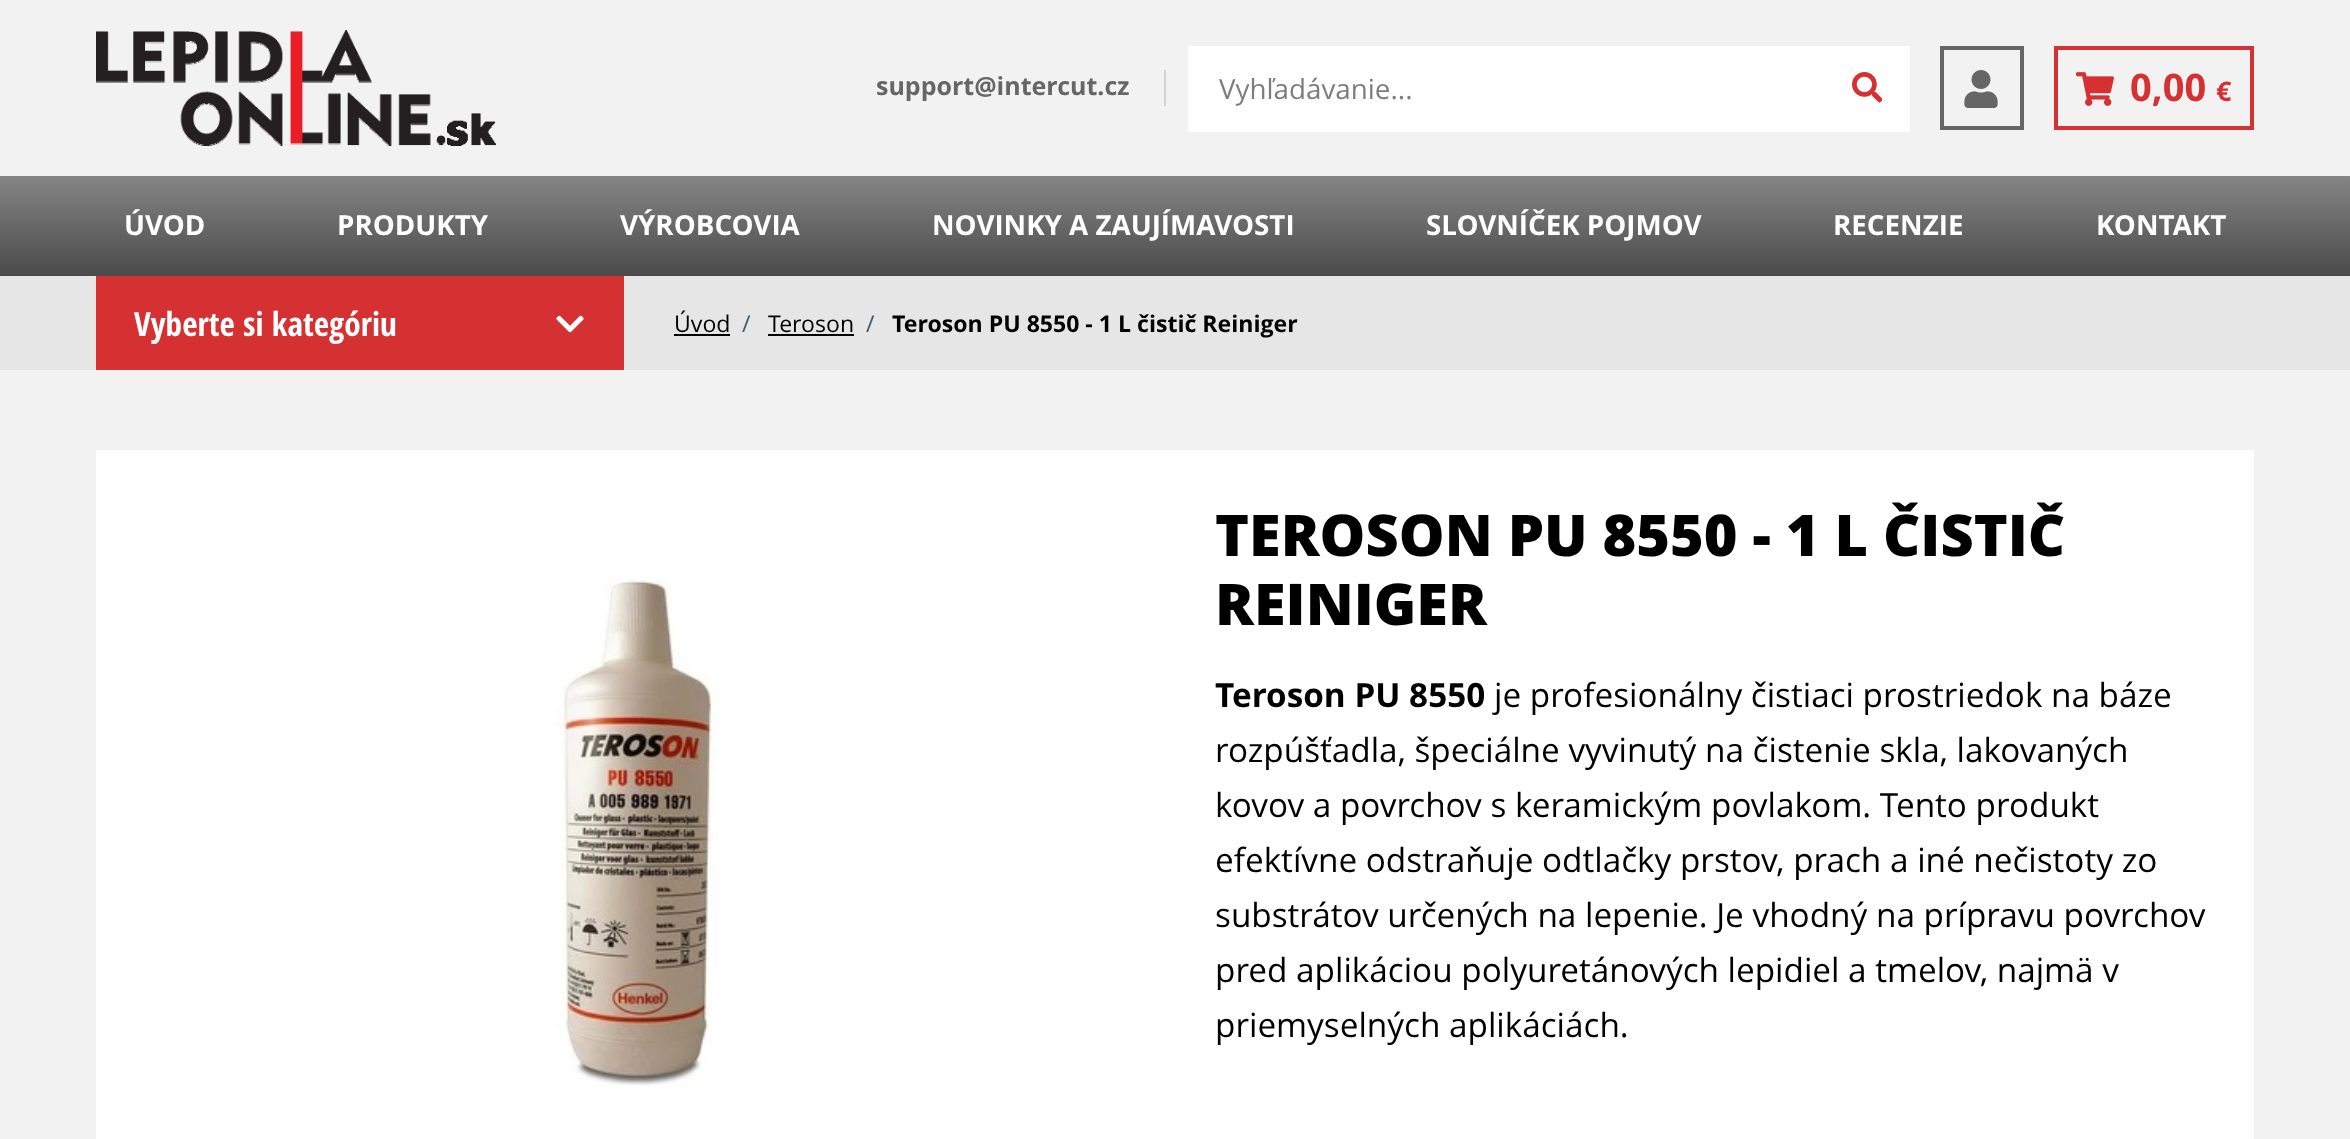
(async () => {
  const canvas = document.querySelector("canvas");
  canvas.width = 2350;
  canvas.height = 1139;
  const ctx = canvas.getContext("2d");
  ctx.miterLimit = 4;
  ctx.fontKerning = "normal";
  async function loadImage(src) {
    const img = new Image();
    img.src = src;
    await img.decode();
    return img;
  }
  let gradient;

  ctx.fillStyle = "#f2f2f2";
  ctx.fillRect(0, 0, 2350, 1139);
  ctx.drawImage(await loadImage("img/1.png"), 96, 30, 400, 116);
  ctx.fillStyle = "#d4d4d4";
  ctx.fillRect(1164, 70, 2, 36);
  ctx.fillStyle = "#ffffff";
  ctx.fillRect(1188, 46, 722, 86);
  ctx.drawImage(await loadImage("img/2.png"), 1852, 72, 30, 31);
  ctx.strokeStyle = "#666666";
  ctx.lineWidth = 4;
  ctx.strokeRect(1942, 48, 80, 80);
  ctx.drawImage(await loadImage("img/3.png"), 1964, 70, 34, 38);
  ctx.strokeStyle = "#d53032";
  ctx.strokeRect(2056, 48, 196, 80);
  ctx.drawImage(await loadImage("img/4.png"), 2076, 72, 38, 34);
  gradient = ctx.createLinearGradient(1175, 176, 1175, 276);
  gradient.addColorStop(0, "#858585");
  gradient.addColorStop(1, "#4a4a4a");
  ctx.fillStyle = gradient;
  ctx.fillRect(0, 176, 2350, 100);
  ctx.fillStyle = "#e6e6e6";
  ctx.fillRect(0, 276, 2350, 94);
  ctx.fillStyle = "#d53032";
  ctx.fillRect(96, 276, 528, 94);
  ctx.drawImage(await loadImage("img/5.png"), 556, 315, 28, 18);
  for (const [x, y, w, h, color] of [
    [674, 334, 56, 2, "#000000"],
    [768, 334, 86, 2, "#000000"],
    [96, 450, 2158, 689, "#ffffff"],
  ]) {
    ctx.fillStyle = color;
    ctx.fillRect(x, y, w, h);
  }
  ctx.drawImage(await loadImage("img/6.png"), 555, 577, 163, 509);
  ctx.font = "bold 25px Open Sans";
  ctx.fillStyle = "#666666";
  ctx.fillText("support@intercut.cz", 876, 95);
  ctx.font = "27.75px Open Sans";
  ctx.fillStyle = "#7d7d7d";
  ctx.fillText("Vyhľadávanie...", 1219, 99);
  ctx.font = "bold 38px Open Sans";
  ctx.fillStyle = "#d53032";
  ctx.fillText("0,00", 2130, 101);
  ctx.font = "bold 27px Open Sans";
  ctx.fillText("€", 2216, 101);
  ctx.font = "bold 27.75px Open Sans";
  ctx.fillStyle = "#ffffff";
  for (const [text, x, y] of [
    ["ÚVOD", 124, 235],
    ["PRODUKTY", 337, 235],
    ["VÝROBCOVIA", 620, 235],
    ["NOVINKY A ZAUJÍMAVOSTI", 932, 235],
    ["SLOVNÍČEK POJMOV", 1426, 235],
    ["RECENZIE", 1833, 235],
    ["KONTAKT", 2096, 235],
  ]) {
    ctx.fillText(text, x, y);
  }
  ctx.font = "bold 33.3px Open Sans Condensed";
  ctx.fillText("Vyberte si kategóriu", 134, 336);
  ctx.font = "23.1px Open Sans";
  ctx.fillStyle = "#000000";
  ctx.fillText("Úvod", 674, 332);
  ctx.fillStyle = "#3d5b69";
  ctx.fillText("/", 742, 332);
  ctx.fillStyle = "#000000";
  ctx.fillText("Teroson", 768, 332);
  ctx.fillStyle = "#3d5b69";
  ctx.fillText("/", 866, 332);
  ctx.font = "bold 23.1px Open Sans";
  ctx.fillStyle = "#000000";
  ctx.fillText("Teroson PU 8550 - 1 L čistič Reiniger", 892, 332);
  ctx.font = "800 57.6px Open Sans";
  ctx.fillText("TEROSON PU 8550 - 1 L ČISTIČ", 1215, 556);
  ctx.fillText("REINIGER", 1215, 625);
  ctx.font = "bold 33.3px Open Sans";
  ctx.fillText("Teroson PU 8550", 1215, 707);
  ctx.font = "33.3px Open Sans";
  for (const [text, x, y] of [
    ["je profesionálny čistiaci prostriedok na báze", 1494, 707],
    ["rozpúšťadla, špeciálne vyvinutý na čistenie skla, lakovaných", 1215, 762],
    ["kovov a povrchov s keramickým povlakom. Tento produkt", 1215, 817],
    ["efektívne odstraňuje odtlačky prstov, prach a iné nečistoty zo", 1215, 872],
    ["substrátov určených na lepenie. Je vhodný na prípravu povrchov", 1215, 927],
    ["pred aplikáciou polyuretánových lepidiel a tmelov, najmä v", 1215, 982],
    ["priemyselných aplikáciách.", 1215, 1037],
  ]) {
    ctx.fillText(text, x, y);
  }
})();
